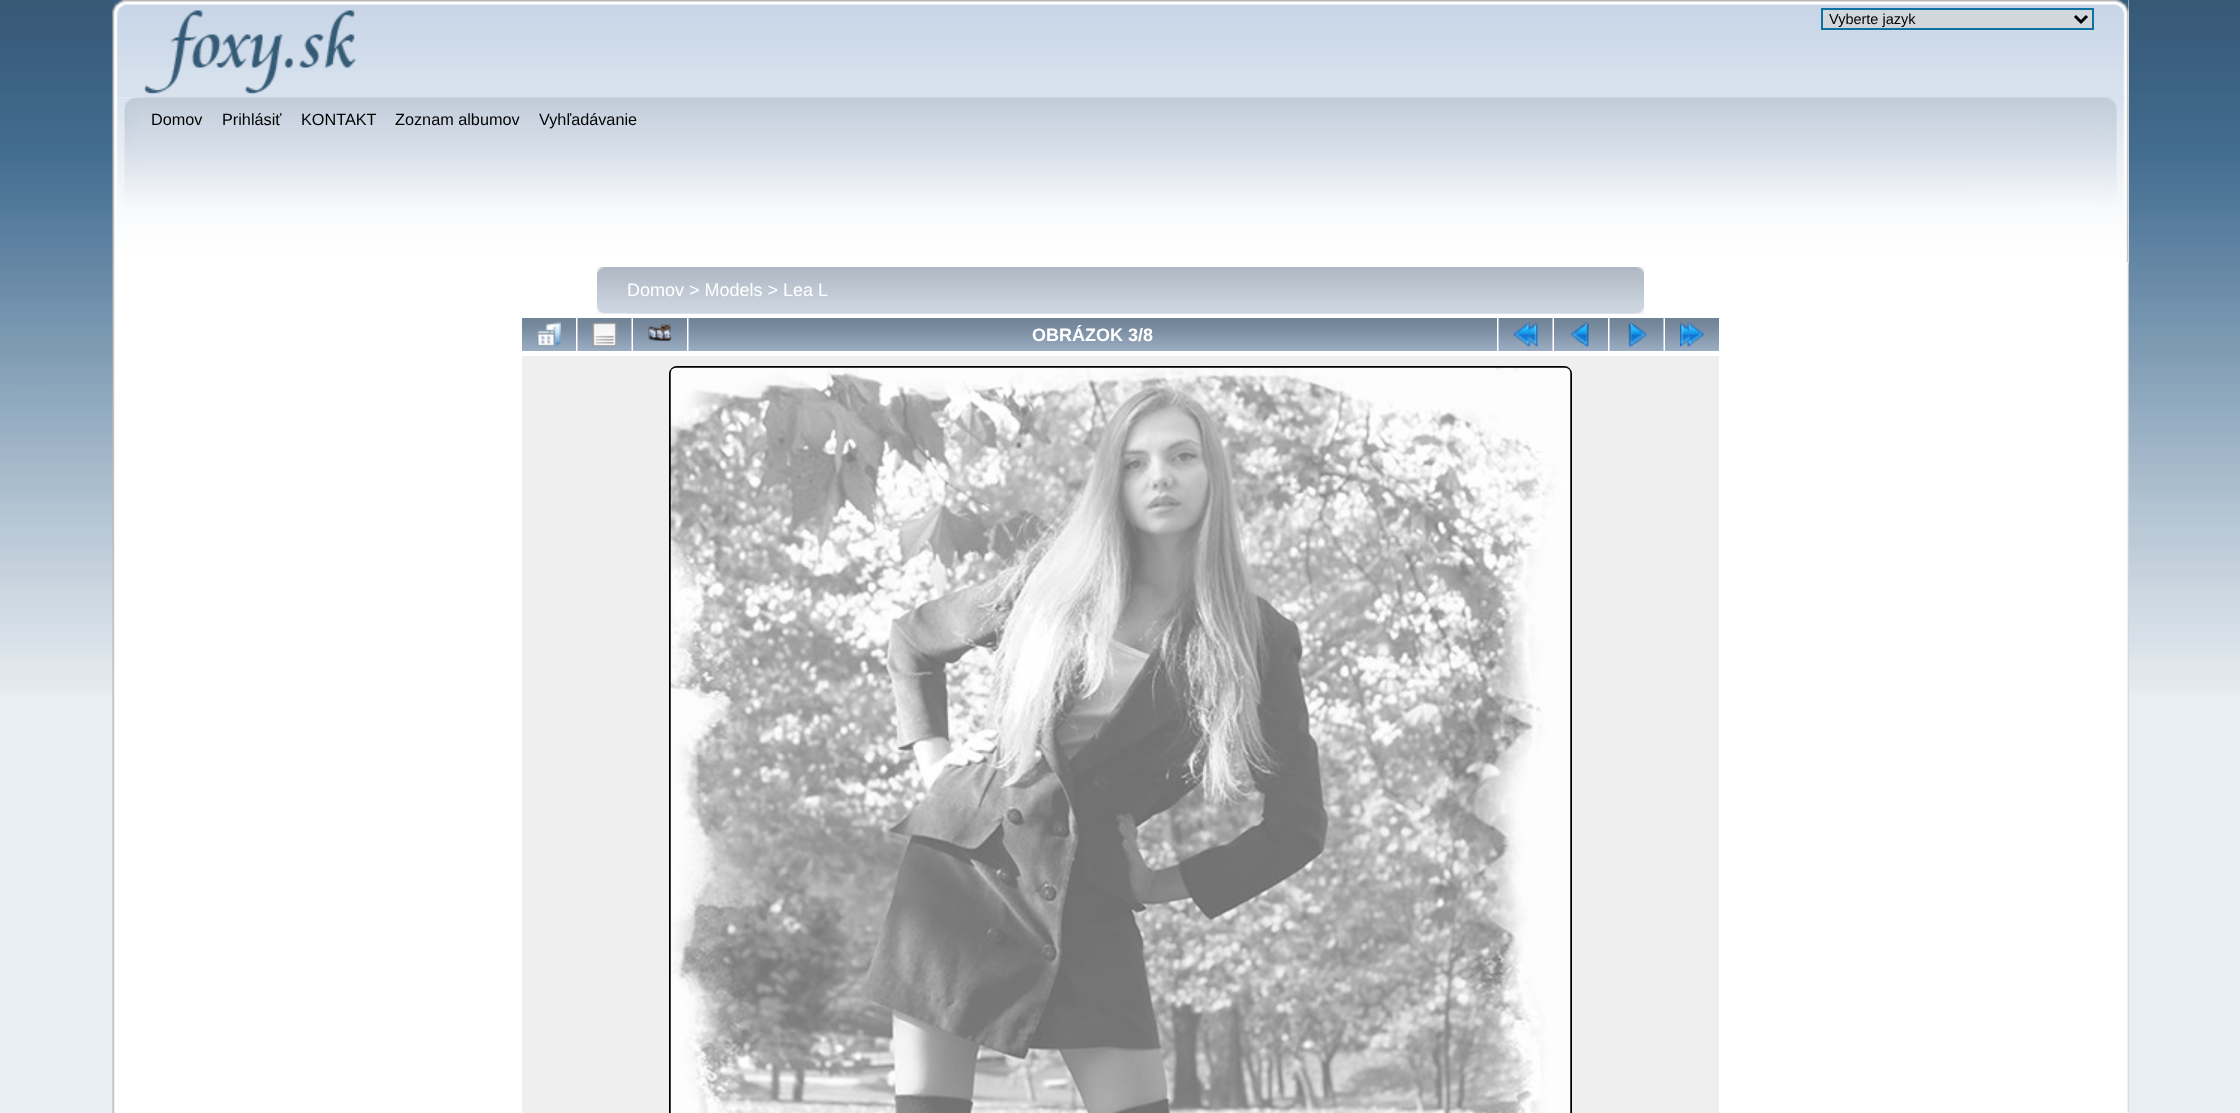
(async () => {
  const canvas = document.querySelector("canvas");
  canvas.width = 2240;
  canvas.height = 1113;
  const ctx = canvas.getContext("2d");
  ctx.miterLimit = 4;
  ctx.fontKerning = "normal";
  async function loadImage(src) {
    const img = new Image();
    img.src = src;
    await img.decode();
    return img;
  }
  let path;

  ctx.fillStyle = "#e9eef2";
  ctx.fillRect(0, 0, 2240, 1113);
  ctx.drawImage(await loadImage("img/1.png"), 0, 0, 2240, 693);
  ctx.fillStyle = "#fefefe";
  ctx.fillRect(113, 0, 2016, 263);
  ctx.drawImage(await loadImage("img/2.png"), 112, 0, 2017, 98);
  ctx.drawImage(await loadImage("img/3.png"), 142, 0, 1987, 98);
  ctx.drawImage(await loadImage("img/4.png"), 143, 10, 213, 84);
  ctx.fillStyle = "#d1d7dc";
  ctx.beginPath();
  ctx.rect(1822, 9, 271, 20);
  ctx.fill();
  ctx.strokeStyle = "#0e72a4";
  ctx.lineWidth = 2;
  ctx.stroke();
  path = new Path2D("M2075 16L2081 22L2087 16");
  ctx.strokeStyle = "#000000";
  ctx.lineWidth = 3;
  ctx.stroke(path);
  ctx.drawImage(await loadImage("img/5.png"), 112, 97, 2017, 166);
  ctx.drawImage(await loadImage("img/6.png"), 142, 97, 1987, 166);
  ctx.drawImage(await loadImage("img/7.png"), 112, 262, 2017, 851);
  ctx.drawImage(await loadImage("img/8.png"), 2127, 262, 2, 851);
  ctx.drawImage(await loadImage("img/9.png"), 597, 267, 1047, 47);
  ctx.drawImage(await loadImage("img/10.png"), 627, 267, 1017, 47);
  ctx.drawImage(await loadImage("img/11.png"), 522, 318, 54, 33);
  ctx.drawImage(await loadImage("img/12.png"), 537, 322, 24, 25);
  ctx.drawImage(await loadImage("img/13.png"), 577, 318, 55, 33);
  ctx.drawImage(await loadImage("img/14.png"), 592, 322, 25, 25);
  ctx.drawImage(await loadImage("img/11.png"), 633, 318, 54, 33);
  ctx.drawImage(await loadImage("img/15.png"), 648, 323, 24, 19);
  ctx.drawImage(await loadImage("img/16.png"), 688, 318, 809, 33);
  ctx.drawImage(await loadImage("img/13.png"), 1498, 318, 55, 33);
  ctx.drawImage(await loadImage("img/17.png"), 1513, 322, 25, 25);
  ctx.drawImage(await loadImage("img/11.png"), 1554, 318, 54, 33);
  ctx.drawImage(await loadImage("img/18.png"), 1570, 322, 19, 25);
  ctx.drawImage(await loadImage("img/13.png"), 1609, 318, 55, 33);
  ctx.drawImage(await loadImage("img/19.png"), 1628, 322, 20, 25);
  ctx.drawImage(await loadImage("img/11.png"), 1665, 318, 54, 33);
  ctx.drawImage(await loadImage("img/20.png"), 1680, 322, 24, 25);
  ctx.fillStyle = "#efefef";
  ctx.fillRect(522, 356, 1197, 757);
  ctx.beginPath();
  ctx.roundRect(670, 367, 901, 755, 7);
  ctx.lineWidth = 2;
  ctx.stroke();
  ctx.drawImage(await loadImage("img/21.png"), 670, 367, 901, 746);
  ctx.font = "14.5px Liberation Sans";
  ctx.fillStyle = "#000000";
  ctx.fillText("Vyberte jazyk", 1829, 24);
  ctx.font = "16.25px Liberation Sans";
  for (const [text, x, y] of [
    ["Domov", 151, 125],
    ["Prihlásiť", 222, 125],
    ["KONTAKT", 301, 125],
    ["Zoznam albumov", 395, 125],
    ["Vyhľadávanie", 539, 125],
  ]) {
    ctx.fillText(text, x, y);
  }
  ctx.font = "18px Liberation Sans";
  ctx.fillStyle = "#ffffff";
  ctx.fillText("Domov > Models > Lea L", 627, 296);
  ctx.font = "bold 18px Liberation Sans";
  ctx.fillText("OBRÁZOK 3/8", 1032, 341);
})();
